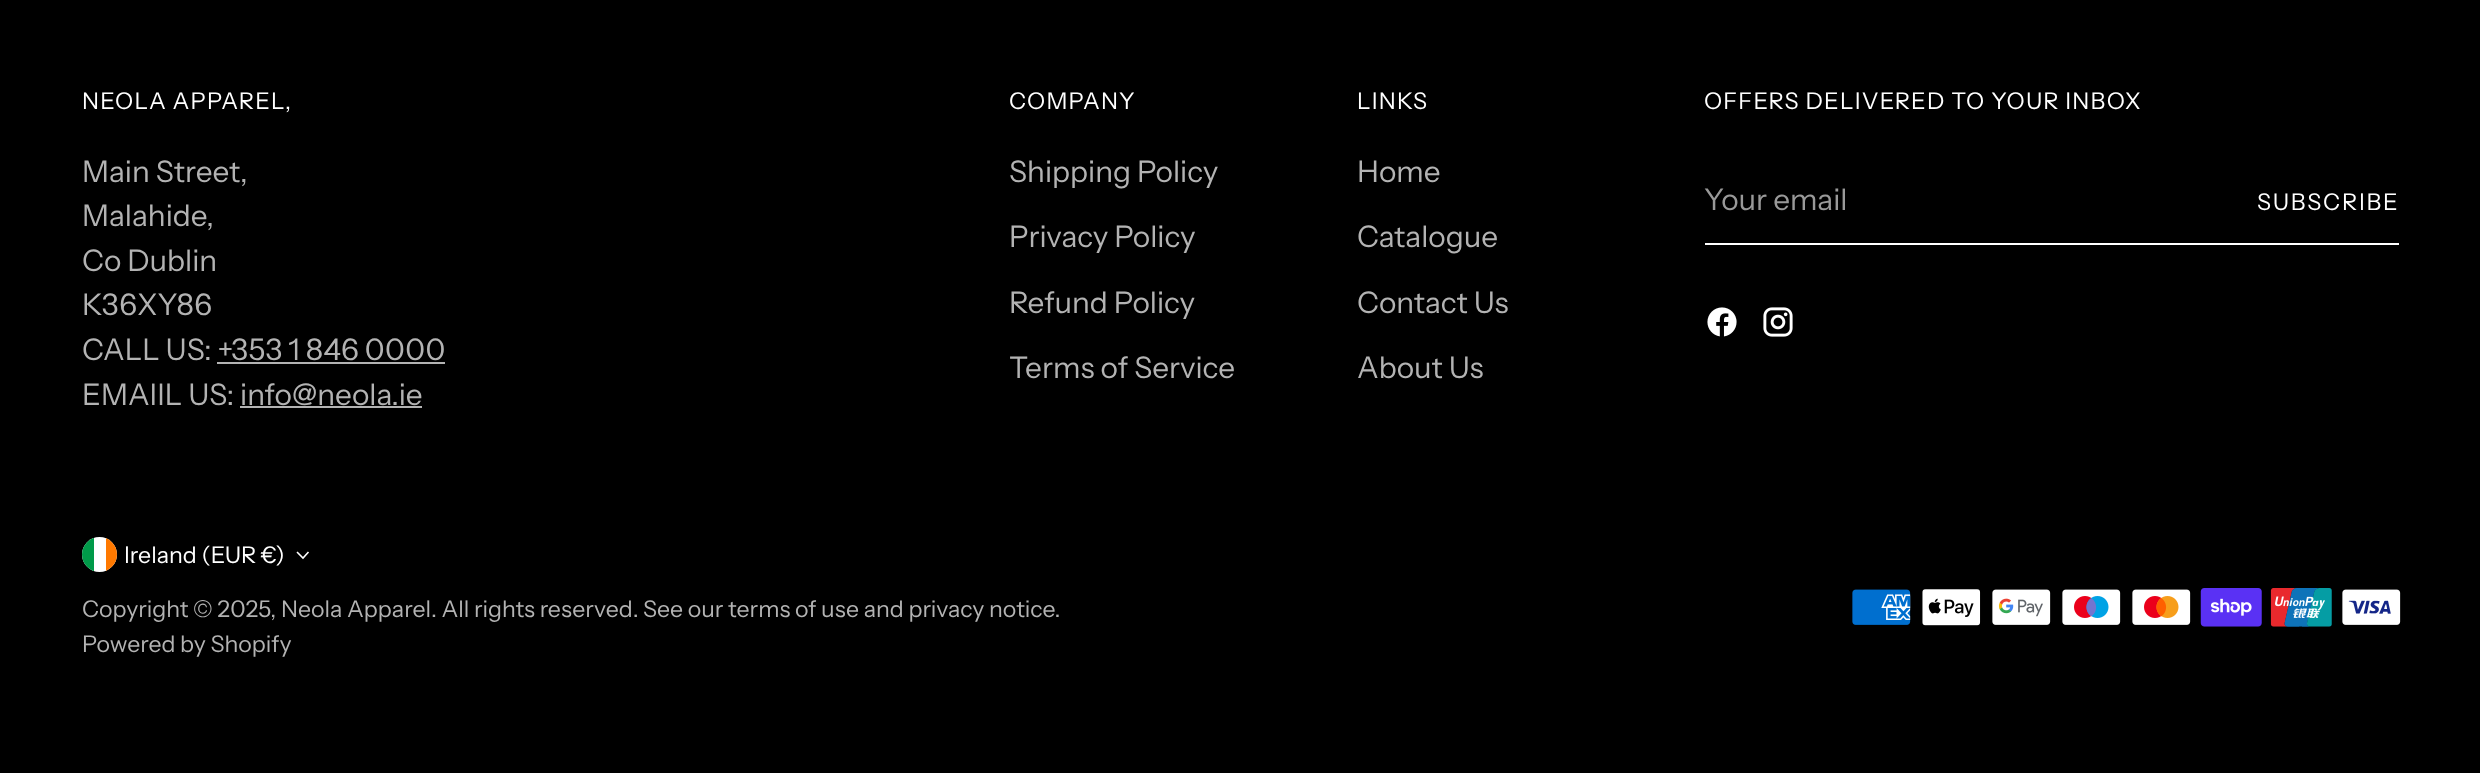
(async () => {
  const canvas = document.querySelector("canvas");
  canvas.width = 2480;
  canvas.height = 773;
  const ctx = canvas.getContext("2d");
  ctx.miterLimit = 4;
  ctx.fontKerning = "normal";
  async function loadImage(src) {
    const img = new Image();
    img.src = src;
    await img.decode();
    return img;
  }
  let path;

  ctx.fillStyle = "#000000";
  ctx.fillRect(0, 0, 2480, 773);
  for (const [x, y, w, h, color] of [
    [217, 362, 228, 2, "#b3b3b3"],
    [240, 406, 182, 2, "#b3b3b3"],
    [1705, 243, 694, 2, "#ffffff"],
  ]) {
    ctx.fillStyle = color;
    ctx.fillRect(x, y, w, h);
  }
  ctx.drawImage(await loadImage("img/1.png"), 1707, 307, 30, 30);
  ctx.drawImage(await loadImage("img/2.png"), 1763, 307, 30, 30);
  ctx.beginPath();
  ctx.arc(99.5, 554.5, 17.5, 0, Math.PI * 2);
  ctx.fill();
  ctx.save();
  ctx.beginPath();
  ctx.roundRect(82, 537, 35, 35, 17.5);
  ctx.clip();
  ctx.fillStyle = "#009a49";
  ctx.fillRect(82, 538, 12, 33);
  ctx.fillStyle = "#ff7900";
  ctx.fillRect(106, 538, 11, 33);
  ctx.restore();
  path = new Path2D("M297 552L303 558L308.5 552");
  ctx.strokeStyle = "#ffffff";
  ctx.lineWidth = 1.6;
  ctx.stroke(path);
  ctx.drawImage(await loadImage("img/3.png"), 1852, 589, 59, 36);
  ctx.drawImage(await loadImage("img/4.png"), 1922, 589, 59, 37);
  ctx.drawImage(await loadImage("img/5.png"), 1992, 589, 59, 36);
  ctx.drawImage(await loadImage("img/6.png"), 2062, 589, 59, 36);
  ctx.drawImage(await loadImage("img/7.png"), 2132, 589, 59, 36);
  ctx.drawImage(await loadImage("img/8.png"), 2200, 588, 62, 39);
  ctx.drawImage(await loadImage("img/9.png"), 2270, 588, 62, 39);
  ctx.drawImage(await loadImage("img/10.png"), 2342, 589, 59, 36);
  ctx.letterSpacing = "1.15px";
  ctx.font = "23.1px Instrument Sans";
  ctx.fillText("NEOLA APPAREL,", 82, 109);
  ctx.letterSpacing = "0px";
  ctx.font = "29.75px Instrument Sans";
  ctx.fillStyle = "#b3b3b3";
  for (const [text, x, y] of [
    ["Main Street,", 82, 182],
    ["Malahide,", 82, 226],
    ["Co Dublin", 82, 271],
    ["K36XY86", 82, 315],
    ["CALL US: +353 1 846 0000", 82, 360],
    ["EMAIIL US: info@neola.ie", 82, 405],
  ]) {
    ctx.fillText(text, x, y);
  }
  ctx.letterSpacing = "1.15px";
  ctx.font = "23.1px Instrument Sans";
  ctx.fillStyle = "#ffffff";
  ctx.fillText("COMPANY", 1009, 109);
  ctx.letterSpacing = "0px";
  ctx.font = "29.75px Instrument Sans";
  ctx.fillStyle = "#b3b3b3";
  for (const [text, x, y] of [
    ["Shipping Policy", 1009, 182],
    ["Privacy Policy", 1009, 247],
    ["Refund Policy", 1009, 313],
    ["Terms of Service", 1009, 378],
  ]) {
    ctx.fillText(text, x, y);
  }
  ctx.letterSpacing = "1.15px";
  ctx.font = "23.1px Instrument Sans";
  ctx.fillStyle = "#ffffff";
  ctx.fillText("LINKS", 1357, 109);
  ctx.letterSpacing = "0px";
  ctx.font = "29.75px Instrument Sans";
  ctx.fillStyle = "#b3b3b3";
  for (const [text, x, y] of [
    ["Home", 1357, 182],
    ["Catalogue", 1357, 247],
    ["Contact Us", 1357, 313],
    ["About Us", 1357, 378],
  ]) {
    ctx.fillText(text, x, y);
  }
  ctx.letterSpacing = "1.15px";
  ctx.font = "23.1px Instrument Sans";
  ctx.fillStyle = "#ffffff";
  ctx.fillText("OFFERS DELIVERED TO YOUR INBOX", 1704, 109);
  ctx.letterSpacing = "0px";
  ctx.font = "29.75px Instrument Sans";
  ctx.fillStyle = "#999999";
  ctx.fillText("Your email", 1704, 210);
  ctx.letterSpacing = "1.75px";
  ctx.font = "23.1px Instrument Sans";
  ctx.fillStyle = "#ffffff";
  ctx.fillText("SUBSCRIBE", 2257, 210);
  ctx.letterSpacing = "0px";
  ctx.fillText("Ireland (EUR €)", 124, 563);
  ctx.fillStyle = "#b3b3b3";
  for (const [text, x, y] of [
    ["Copyright © 2025,", 82, 617],
    ["Neola Apparel. All rights reserved.", 281, 617],
    ["See our terms of use and privacy notice.", 643, 617],
    ["Powered by Shopify", 82, 652],
  ]) {
    ctx.fillText(text, x, y);
  }
})();
